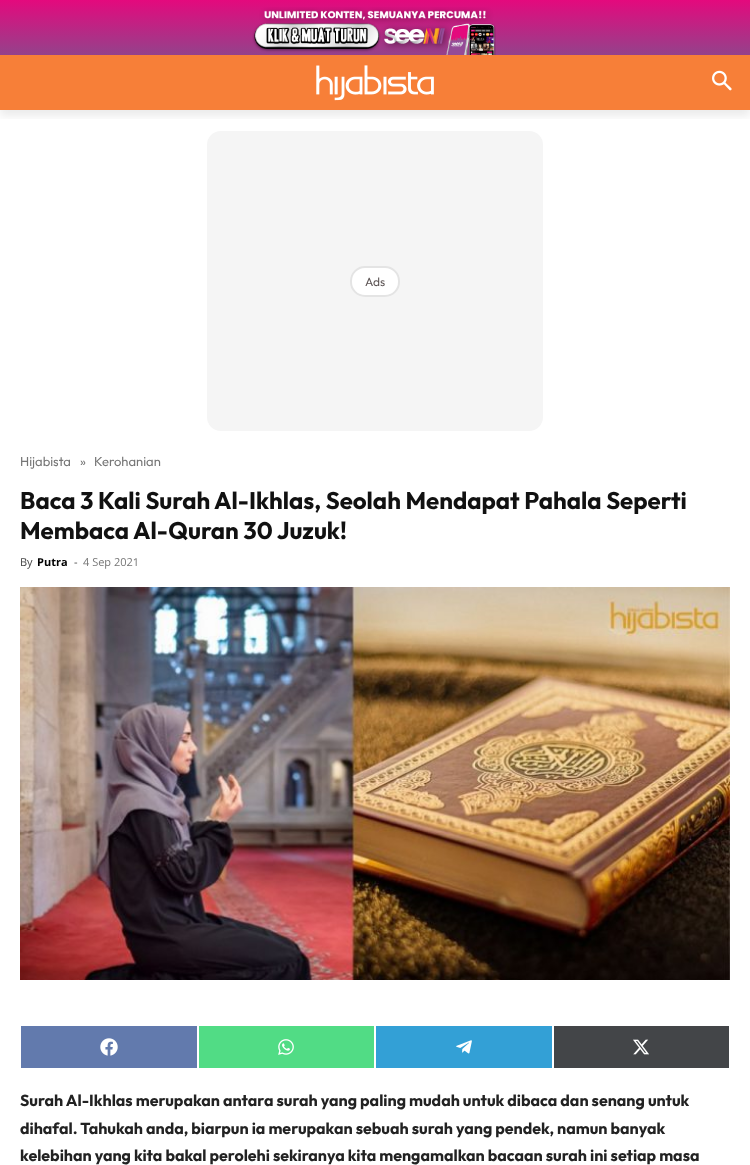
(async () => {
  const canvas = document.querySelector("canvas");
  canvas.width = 750;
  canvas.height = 1165;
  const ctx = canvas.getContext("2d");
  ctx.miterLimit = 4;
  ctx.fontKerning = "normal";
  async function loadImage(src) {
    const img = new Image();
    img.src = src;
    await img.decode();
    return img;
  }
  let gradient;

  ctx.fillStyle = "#ffffff";
  ctx.fillRect(0, 0, 750, 1165);
  gradient = ctx.createLinearGradient(375, 55, 375, 0);
  gradient.addColorStop(0, "#94428b");
  gradient.addColorStop(1, "#e4097d");
  ctx.fillStyle = gradient;
  ctx.fillRect(0, 0, 750, 55);
  ctx.drawImage(await loadImage("img/1.png"), 252, 7, 244, 48);
  ctx.fillStyle = "#f77f38";
  ctx.fillRect(0, 55, 750, 55);
  ctx.drawImage(await loadImage("img/2.png"), 316, 65, 118, 36);
  ctx.drawImage(await loadImage("img/3.png"), 712, 70, 20, 21);
  ctx.save();
  ctx.beginPath();
  ctx.rect(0, 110, 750, 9);
  ctx.clip();
  ctx.fillStyle = "rgba(0, 0, 0, 0.08)";
  ctx.filter = "blur(4px)";
  ctx.beginPath();
  ctx.rect(0, 6, 750, 110);
  ctx.fill();
  ctx.filter = "none";
  ctx.restore();
  ctx.fillStyle = "#f5f5f5";
  ctx.beginPath();
  ctx.roundRect(207, 131, 336, 300, 14);
  ctx.fill();
  ctx.fillStyle = "#ffffff";
  ctx.beginPath();
  ctx.roundRect(351, 267, 48, 29, 14);
  ctx.fill();
  ctx.strokeStyle = "#e4e4e4";
  ctx.lineWidth = 2;
  ctx.stroke();
  ctx.drawImage(await loadImage("img/4.png"), 20, 587, 710, 393);
  ctx.fillStyle = "#627aad";
  ctx.fillRect(21, 1026, 176, 42);
  ctx.drawImage(await loadImage("img/5.png"), 100, 1038, 18, 18);
  ctx.fillStyle = "#51dc85";
  ctx.fillRect(199, 1026, 175, 42);
  ctx.drawImage(await loadImage("img/6.png"), 278, 1039, 16, 16);
  ctx.fillStyle = "#33a0d6";
  ctx.fillRect(376, 1026, 176, 42);
  ctx.drawImage(await loadImage("img/7.png"), 456, 1040, 16, 14);
  ctx.fillStyle = "#434548";
  ctx.fillRect(554, 1026, 175, 42);
  ctx.drawImage(await loadImage("img/8.png"), 633, 1039, 16, 16);
  ctx.font = "12px Outfit";
  ctx.fillStyle = "#5d5555";
  ctx.fillText("Ads", 365, 286);
  ctx.font = "13px Outfit";
  ctx.fillStyle = "#767676";
  for (const [text, x, y] of [
    ["Hijabista", 20, 466],
    ["»", 80, 466],
    ["Kerohanian", 94, 466],
  ]) {
    ctx.fillText(text, x, y);
  }
  ctx.font = "bold 24px Outfit";
  ctx.fillStyle = "#111111";
  ctx.fillText("Baca 3 Kali Surah Al-Ikhlas, Seolah Mendapat Pahala Seperti", 20, 509);
  ctx.fillText("Membaca Al-Quran 30 Juzuk!", 20, 539);
  ctx.font = "11px Open Sans";
  ctx.fillStyle = "#444444";
  ctx.fillText("By", 20, 566);
  ctx.font = "bold 11px Open Sans";
  ctx.fillStyle = "#000000";
  ctx.fillText("Putra", 37, 566);
  ctx.font = "11px Open Sans";
  ctx.fillStyle = "#444444";
  ctx.fillText("-", 74, 566);
  ctx.fillStyle = "#767676";
  ctx.fillText("4 Sep 2021", 83, 566);
  ctx.font = "bold 16px Outfit";
  ctx.fillStyle = "#222222";
  for (const [text, x, y] of [
    ["Surah Al-Ikhlas merupakan antara surah yang paling mudah untuk dibaca dan senang untuk", 20, 1106],
    ["dihafal. Tahukah anda, biarpun ia merupakan sebuah surah yang pendek, namun banyak", 20, 1134],
    ["kelebihan yang kita bakal perolehi sekiranya kita mengamalkan bacaan surah ini setiap masa", 20, 1161],
  ]) {
    ctx.fillText(text, x, y);
  }
})();
